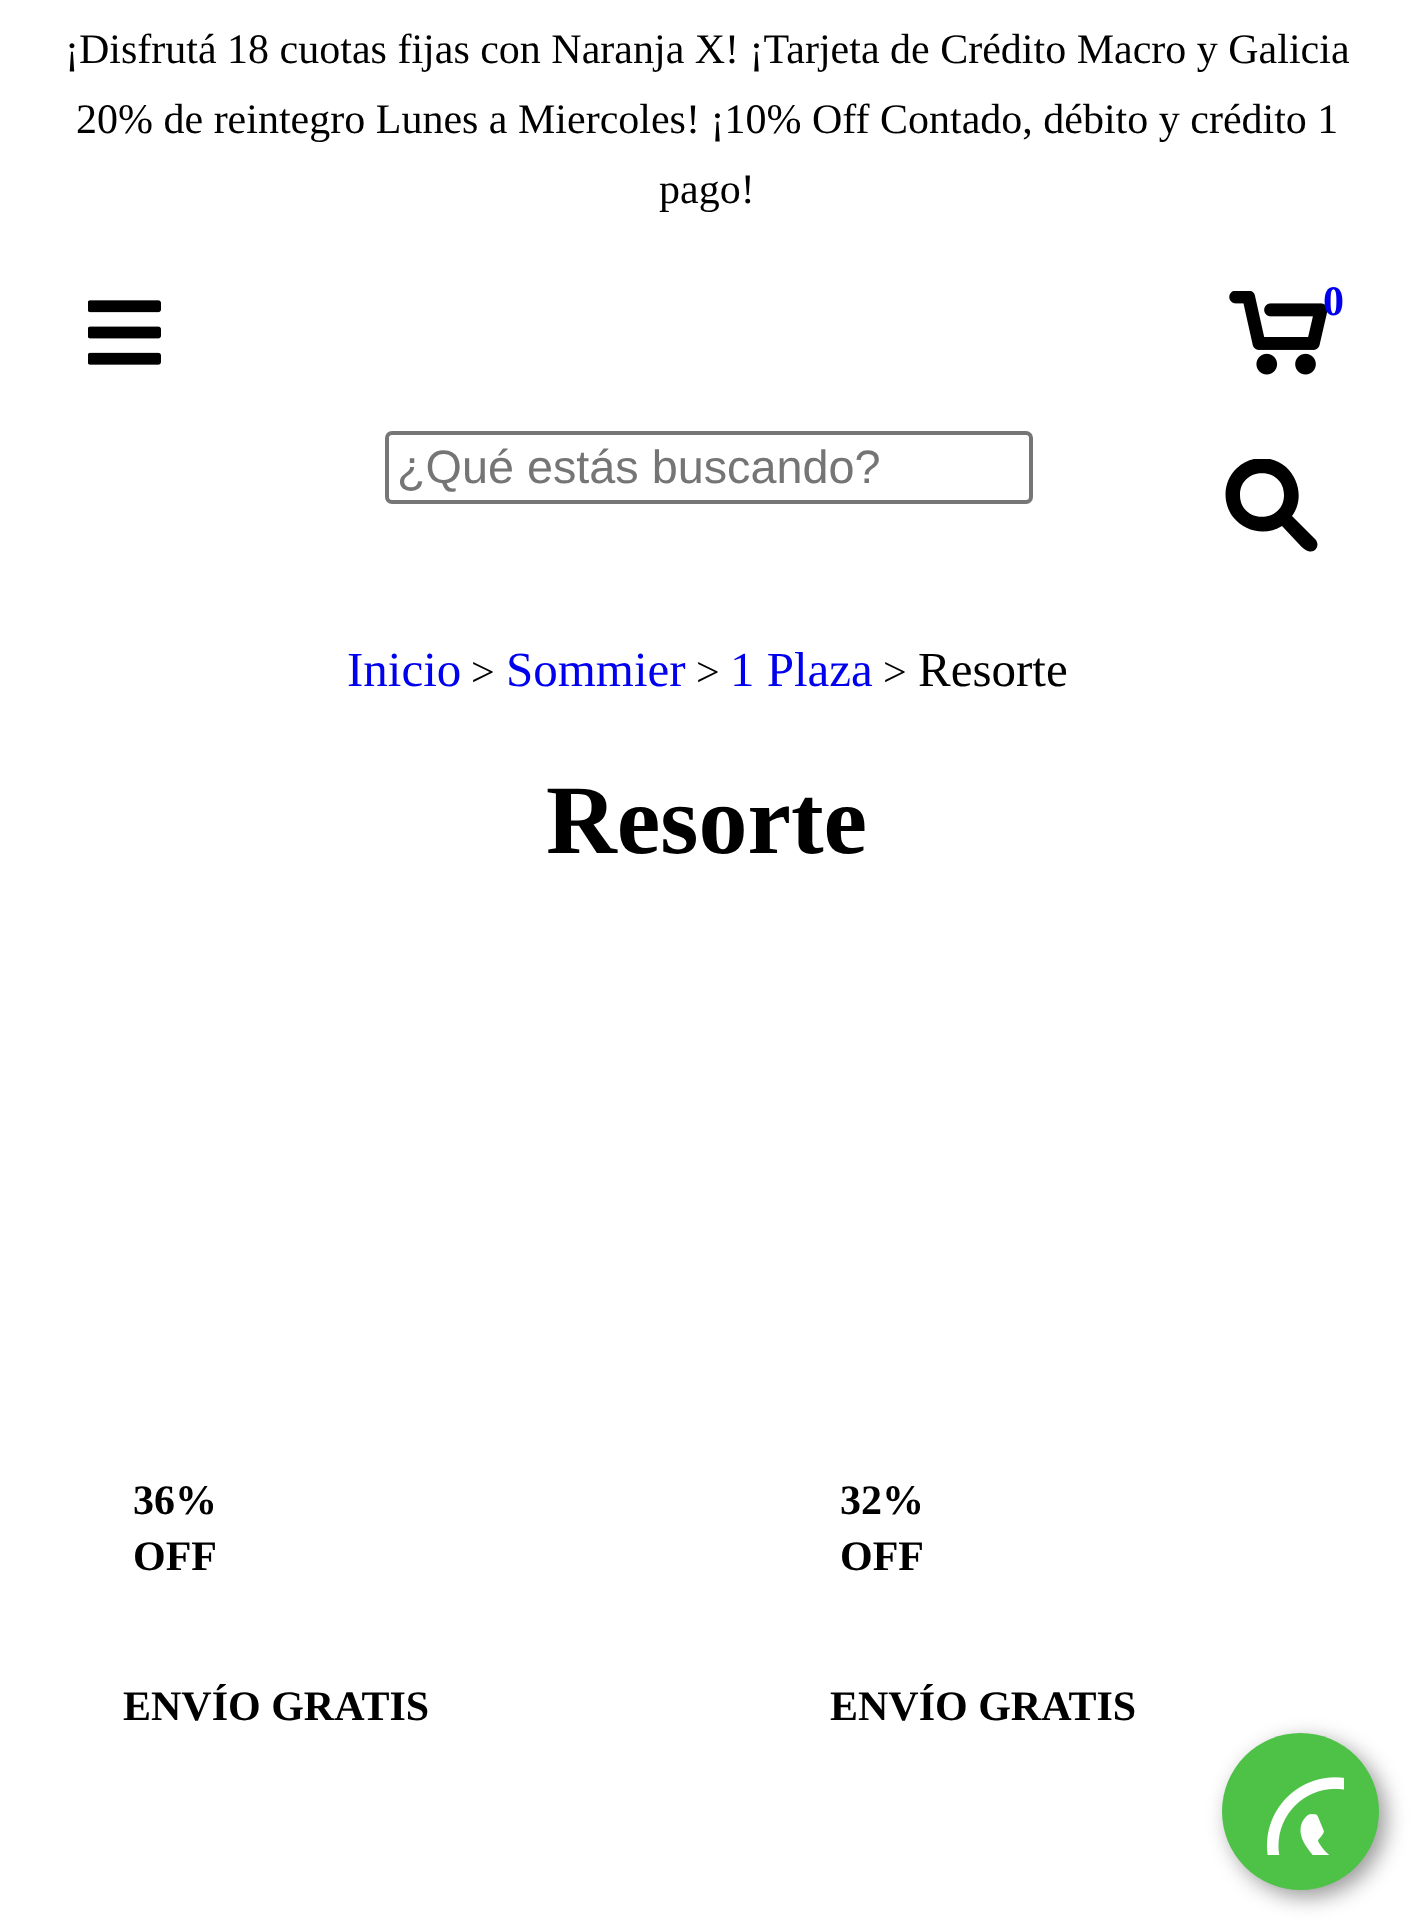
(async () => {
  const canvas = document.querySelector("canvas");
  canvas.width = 1412;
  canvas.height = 1924;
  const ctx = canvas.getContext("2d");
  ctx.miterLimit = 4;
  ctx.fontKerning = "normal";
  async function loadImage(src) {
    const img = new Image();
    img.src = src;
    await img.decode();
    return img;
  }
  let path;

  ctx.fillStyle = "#ffffff";
  ctx.fillRect(0, 0, 1412, 1924);
  ctx.drawImage(await loadImage("img/1.png"), 88, 300, 73, 65);
  ctx.drawImage(await loadImage("img/2.png"), 1229, 291, 99, 84);
  ctx.beginPath();
  ctx.roundRect(387, 433, 644, 69, 5);
  ctx.strokeStyle = "#767676";
  ctx.lineWidth = 4;
  ctx.stroke();
  ctx.save();
  ctx.beginPath();
  ctx.rect(1225, 459, 93, 93);
  ctx.clip();
  ctx.fillStyle = "#000000";
  path = new Path2D("M1315 539L1292 516C1303 501 1300 480 1286 467C1272 455 1251 455 1237 468C1223 481 1222 502 1233 517C1245 532 1266 536 1282 526L1297 542C1300 545 1304 550 1308 551C1315 554 1321 545 1315 539ZM1240 495C1240 466 1284 466 1284 495C1284 524 1240 524 1240 495Z");
  ctx.fill(path);
  ctx.restore();
  ctx.fillStyle = "rgba(0, 0, 0, 0.4)";
  ctx.filter = "blur(10.5px)";
  ctx.beginPath();
  ctx.roundRect(1229, 1740, 157, 157, 78.5);
  ctx.fill();
  ctx.filter = "none";
  ctx.fillStyle = "#4dc247";
  ctx.beginPath();
  ctx.arc(1300.5, 1811.5, 78.5, 0, Math.PI * 2);
  ctx.fill();
  ctx.drawImage(await loadImage("img/3.png"), 1266, 1777, 78, 78);
  ctx.font = "42px Liberation Serif";
  ctx.fillStyle = "#000000";
  for (const [text, x, y] of [
    ["¡Disfrutá 18 cuotas fijas con Naranja X! ¡Tarjeta de Crédito Macro y Galicia", 65, 63],
    ["20% de reintegro Lunes a Miercoles! ¡10% Off Contado, débito y crédito 1", 76, 133],
    ["pago!", 659, 203],
  ]) {
    ctx.fillText(text, x, y);
  }
  ctx.font = "bold 42px Liberation Serif";
  ctx.fillStyle = "#0000ee";
  ctx.fillText("0", 1323, 315);
  ctx.font = "46.75px Liberation Sans";
  ctx.fillStyle = "#757575";
  ctx.fillText("¿Qué estás buscando?", 397, 483);
  ctx.font = "49px Liberation Serif";
  ctx.fillStyle = "#0000ee";
  ctx.fillText("Inicio", 347, 686);
  ctx.font = "42px Liberation Serif";
  ctx.fillStyle = "#000000";
  ctx.fillText(">", 471, 686);
  ctx.font = "49px Liberation Serif";
  ctx.fillStyle = "#0000ee";
  ctx.fillText("Sommier", 506, 686);
  ctx.font = "42px Liberation Serif";
  ctx.fillStyle = "#000000";
  ctx.fillText(">", 696, 686);
  ctx.font = "49px Liberation Serif";
  ctx.fillStyle = "#0000ee";
  ctx.fillText("1 Plaza", 730, 686);
  ctx.font = "42px Liberation Serif";
  ctx.fillStyle = "#000000";
  ctx.fillText(">", 883, 686);
  ctx.font = "49px Liberation Serif";
  ctx.fillText("Resorte", 918, 686);
  ctx.font = "bold 98px Liberation Serif";
  ctx.fillText("Resorte", 546, 853);
  ctx.font = "bold 42px Liberation Serif";
  for (const [text, x, y] of [
    ["36%", 133, 1514],
    ["OFF", 133, 1570],
    ["ENVÍO GRATIS", 123, 1720],
    ["32%", 840, 1514],
    ["OFF", 840, 1570],
    ["ENVÍO GRATIS", 830, 1720],
  ]) {
    ctx.fillText(text, x, y);
  }
})();
